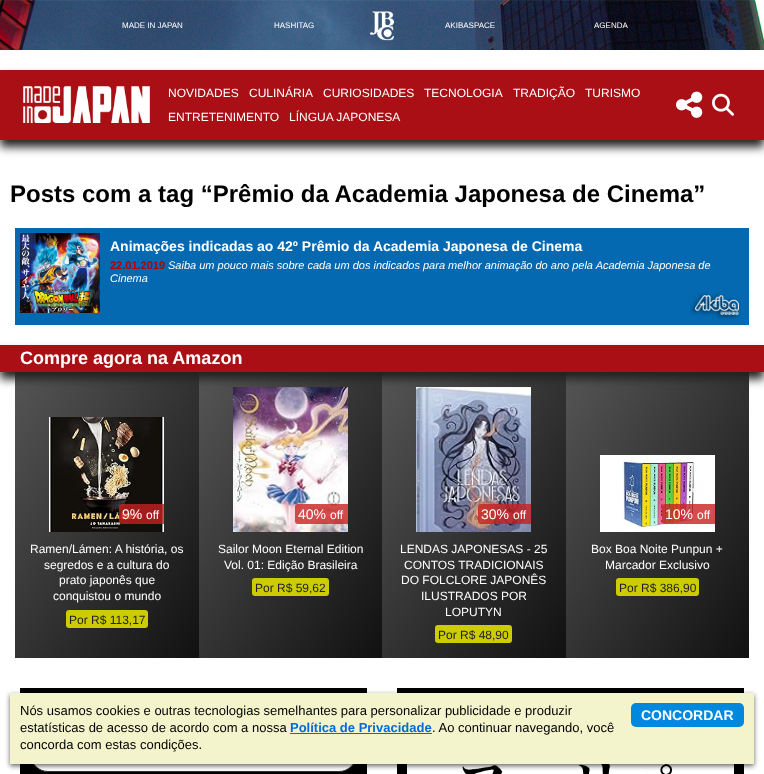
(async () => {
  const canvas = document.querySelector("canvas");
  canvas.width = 764;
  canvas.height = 774;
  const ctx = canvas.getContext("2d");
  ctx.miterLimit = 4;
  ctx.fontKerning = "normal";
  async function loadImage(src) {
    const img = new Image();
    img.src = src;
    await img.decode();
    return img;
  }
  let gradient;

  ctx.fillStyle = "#ffffff";
  ctx.fillRect(0, 0, 764, 774);
  ctx.drawImage(await loadImage("img/1.png"), 0, 0, 764, 50);
  ctx.drawImage(await loadImage("img/2.png"), 370, 11, 24, 30);
  ctx.fillStyle = "#222222";
  ctx.filter = "blur(5px)";
  ctx.beginPath();
  ctx.rect(0, 77, 764, 70);
  ctx.fill();
  ctx.filter = "none";
  ctx.fillStyle = "#aa0f15";
  ctx.fillRect(0, 70, 764, 70);
  ctx.drawImage(await loadImage("img/3.png"), 23, 86, 127, 37);
  ctx.drawImage(await loadImage("img/4.png"), 676, 91, 27, 27);
  ctx.drawImage(await loadImage("img/5.png"), 712, 93, 22, 23);
  ctx.fillStyle = "#0469b1";
  ctx.fillRect(15, 228, 734, 97);
  ctx.drawImage(await loadImage("img/6.png"), 20, 233, 80, 80);
  ctx.drawImage(await loadImage("img/7.png"), 690, 292, 51, 28);
  gradient = ctx.createLinearGradient(-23, 431, 237, 599);
  gradient.addColorStop(0, "#555555");
  gradient.addColorStop(1, "#111111");
  ctx.fillStyle = gradient;
  ctx.fillRect(15, 372, 184, 286);
  gradient = ctx.createLinearGradient(161, 432, 420, 598);
  gradient.addColorStop(0, "#555555");
  gradient.addColorStop(1, "#111111");
  ctx.fillStyle = gradient;
  ctx.fillRect(199, 372, 183, 286);
  ctx.drawImage(await loadImage("img/9.png"), 233, 387, 115, 145);
  gradient = ctx.createLinearGradient(344, 431, 604, 599);
  gradient.addColorStop(0, "#555555");
  gradient.addColorStop(1, "#111111");
  ctx.fillStyle = gradient;
  ctx.fillRect(382, 372, 184, 286);
  ctx.drawImage(await loadImage("img/10.png"), 416, 387, 115, 145);
  gradient = ctx.createLinearGradient(528, 432, 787, 598);
  gradient.addColorStop(0, "#555555");
  gradient.addColorStop(1, "#111111");
  ctx.fillStyle = gradient;
  ctx.fillRect(566, 372, 183, 286);
  ctx.fillStyle = "#222222";
  ctx.filter = "blur(5px)";
  ctx.beginPath();
  ctx.rect(0, 352, 764, 27);
  ctx.fill();
  ctx.filter = "none";
  ctx.fillStyle = "#aa0f15";
  ctx.fillRect(0, 345, 764, 27);
  ctx.drawImage(await loadImage("img/8.png"), 49, 417, 115, 115);
  ctx.fillStyle = "rgba(200, 33, 33, 0.8)";
  ctx.beginPath();
  ctx.roundRect(119, 504, 45, 20, [3, 0, 0, 3]);
  ctx.fill();
  ctx.fillStyle = "#cccc00";
  ctx.beginPath();
  ctx.roundRect(66, 610, 82, 18, 3);
  ctx.fill();
  ctx.fillStyle = "rgba(200, 33, 33, 0.8)";
  ctx.beginPath();
  ctx.roundRect(295, 504, 53, 20, [3, 0, 0, 3]);
  ctx.fill();
  ctx.fillStyle = "#cccc00";
  ctx.beginPath();
  ctx.roundRect(252, 578, 77, 18, 3);
  ctx.fill();
  ctx.fillStyle = "rgba(200, 33, 33, 0.8)";
  ctx.beginPath();
  ctx.roundRect(478, 504, 53, 20, [3, 0, 0, 3]);
  ctx.fill();
  ctx.fillStyle = "#cccc00";
  ctx.beginPath();
  ctx.roundRect(435, 625, 77, 18, 3);
  ctx.fill();
  ctx.drawImage(await loadImage("img/11.png"), 600, 455, 115, 77);
  ctx.fillStyle = "rgba(200, 33, 33, 0.8)";
  ctx.beginPath();
  ctx.roundRect(662, 504, 53, 20, [3, 0, 0, 3]);
  ctx.fill();
  ctx.fillStyle = "#cccc00";
  ctx.beginPath();
  ctx.roundRect(616, 578, 83, 18, 3);
  ctx.fill();
  ctx.fillStyle = "#000000";
  ctx.fillRect(20, 688, 347, 86);
  ctx.fillStyle = "#ffffff";
  ctx.beginPath();
  ctx.roundRect(30.5, 736.5, 326, 35, 17.5);
  ctx.fill();
  ctx.strokeStyle = "#333333";
  ctx.stroke();
  ctx.fillStyle = "#000000";
  ctx.fillRect(397, 688, 347, 86);
  ctx.fillStyle = "#ffffff";
  ctx.fillRect(407, 764, 327, 10);
  ctx.drawImage(await loadImage("img/12.png"), 462, 764, 210, 10);
  ctx.fillStyle = "rgba(0, 0, 0, 0.6)";
  ctx.filter = "blur(2.5px)";
  ctx.beginPath();
  ctx.rect(10, 695, 744, 71);
  ctx.fill();
  ctx.filter = "none";
  ctx.fillStyle = "#f4f4cc";
  ctx.fillRect(10, 693, 744, 71);
  ctx.fillStyle = "#0069dd";
  ctx.fillRect(290, 733, 142, 1);
  ctx.fillStyle = "#0088dd";
  ctx.beginPath();
  ctx.roundRect(631, 703, 113, 24, 5);
  ctx.fill();
  ctx.font = "8px Liberation Sans";
  ctx.fillStyle = "#ffffff";
  for (const [text, x, y] of [
    ["MADE IN JAPAN", 122, 28],
    ["HASHITAG", 274, 28],
    ["AKIBASPACE", 445, 28],
    ["AGENDA", 594, 28],
  ]) {
    ctx.fillText(text, x, y);
  }
  ctx.font = "12px Liberation Sans";
  for (const [text, x, y] of [
    ["NOVIDADES", 168, 97],
    ["CULINÁRIA", 249, 97],
    ["CURIOSIDADES", 323, 97],
    ["TECNOLOGIA", 424, 97],
    ["TRADIÇÃO", 513, 97],
    ["TURISMO", 585, 97],
    ["ENTRETENIMENTO", 168, 121],
    ["LÍNGUA JAPONESA", 289, 121],
  ]) {
    ctx.fillText(text, x, y);
  }
  ctx.font = "bold 24px Liberation Sans";
  ctx.fillStyle = "#000000";
  ctx.fillText("Posts com a tag “Prêmio da Academia Japonesa de Cinema”", 10, 202);
  ctx.font = "bold 14px Liberation Sans";
  ctx.fillStyle = "#ffffff";
  ctx.fillText("Animações indicadas ao 42º Prêmio da Academia Japonesa de Cinema", 110, 251);
  ctx.font = "bold 11px Liberation Sans";
  ctx.fillStyle = "#b30000";
  ctx.fillText("22.01.2019", 110, 269);
  ctx.font = "italic 11px Liberation Sans";
  ctx.fillStyle = "#ffffff";
  ctx.fillText("Saiba um pouco mais sobre cada um dos indicados para melhor animação do ano pela Academia Japonesa de", 168, 269);
  ctx.fillText("Cinema", 110, 282);
  ctx.font = "bold 18px Liberation Sans";
  ctx.fillText("Compre agora na Amazon", 20, 364);
  ctx.font = "14px Liberation Sans";
  ctx.fillText("9%", 122, 519);
  ctx.font = "12px Liberation Sans";
  for (const [text, x, y] of [
    ["off", 146, 519],
    ["Ramen/Lámen: A história, os", 30, 553],
    ["segredos e a cultura do", 44, 569],
    ["prato japonês que", 59, 584],
    ["conquistou o mundo", 53, 600],
  ]) {
    ctx.fillText(text, x, y);
  }
  ctx.fillStyle = "#222222";
  ctx.fillText("Por R$ 113,17", 69, 624);
  ctx.font = "14px Liberation Sans";
  ctx.fillStyle = "#ffffff";
  ctx.fillText("40%", 298, 519);
  ctx.font = "12px Liberation Sans";
  for (const [text, x, y] of [
    ["off", 330, 519],
    ["Sailor Moon Eternal Edition", 218, 553],
    ["Vol. 01: Edição Brasileira", 224, 569],
  ]) {
    ctx.fillText(text, x, y);
  }
  ctx.fillStyle = "#222222";
  ctx.fillText("Por R$ 59,62", 255, 592);
  ctx.font = "14px Liberation Sans";
  ctx.fillStyle = "#ffffff";
  ctx.fillText("30%", 481, 519);
  ctx.font = "12px Liberation Sans";
  for (const [text, x, y] of [
    ["off", 513, 519],
    ["LENDAS JAPONESAS - 25", 400, 553],
    ["CONTOS TRADICIONAIS", 404, 569],
    ["DO FOLCLORE JAPONÊS", 401, 584],
    ["ILUSTRADOS POR", 421, 600],
    ["LOPUTYN", 445, 616],
  ]) {
    ctx.fillText(text, x, y);
  }
  ctx.fillStyle = "#222222";
  ctx.fillText("Por R$ 48,90", 438, 639);
  ctx.font = "14px Liberation Sans";
  ctx.fillStyle = "#ffffff";
  ctx.fillText("10%", 665, 519);
  ctx.font = "12px Liberation Sans";
  for (const [text, x, y] of [
    ["off", 697, 519],
    ["Box Boa Noite Punpun +", 591, 553],
    ["Marcador Exclusivo", 605, 569],
  ]) {
    ctx.fillText(text, x, y);
  }
  ctx.fillStyle = "#222222";
  ctx.fillText("Por R$ 386,90", 619, 592);
  ctx.font = "13px Liberation Sans";
  ctx.fillStyle = "#000000";
  ctx.fillText("Nós usamos cookies e outras tecnologias semelhantes para personalizar publicidade e produzir", 20, 715);
  ctx.fillText("estatísticas de acesso de acordo com a nossa", 20, 732);
  ctx.font = "bold 13px Liberation Sans";
  ctx.fillStyle = "#0069dd";
  ctx.fillText("Política de Privacidade", 290, 732);
  ctx.font = "13px Liberation Sans";
  ctx.fillStyle = "#000000";
  ctx.fillText(". Ao continuar navegando, você", 432, 732);
  ctx.fillText("concorda com estas condições.", 20, 749);
  ctx.font = "bold 14px Liberation Sans";
  ctx.fillStyle = "#ffffff";
  ctx.fillText("CONCORDAR", 641, 720);
})();
